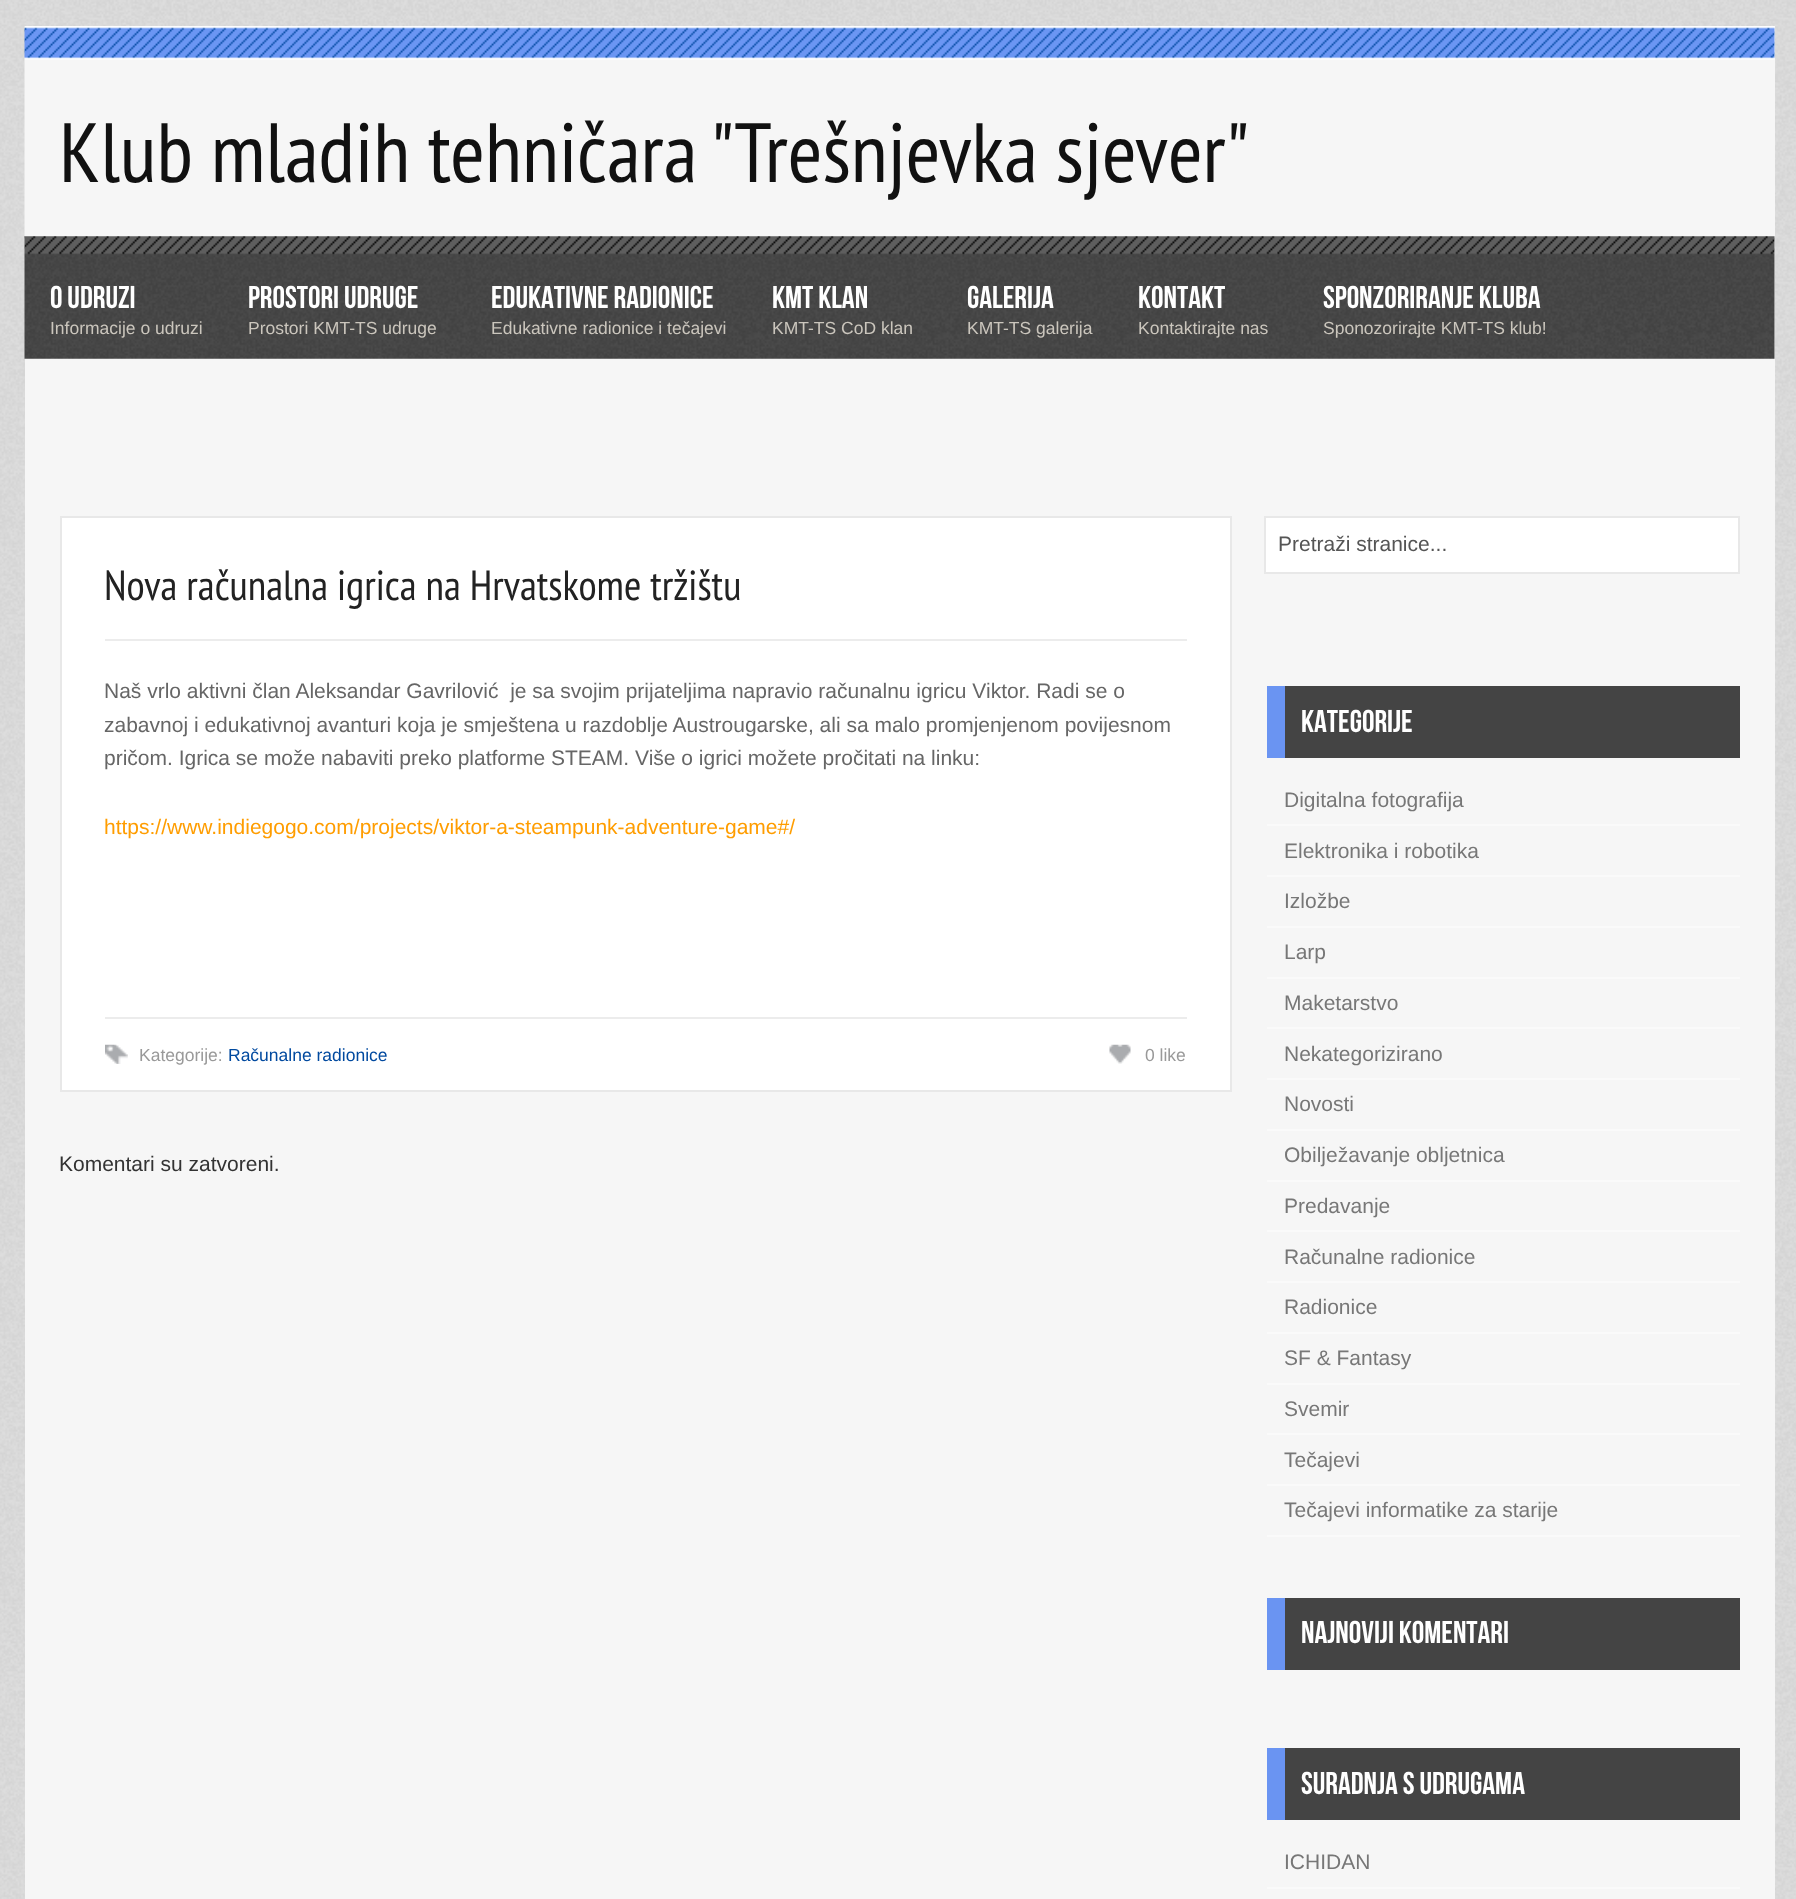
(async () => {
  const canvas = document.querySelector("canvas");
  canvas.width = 1796;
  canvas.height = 1899;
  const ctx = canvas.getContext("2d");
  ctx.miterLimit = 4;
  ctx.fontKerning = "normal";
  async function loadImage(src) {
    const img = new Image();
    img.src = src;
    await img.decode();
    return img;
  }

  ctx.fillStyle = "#ffffff";
  ctx.fillRect(0, 0, 1796, 1899);
  ctx.drawImage(await loadImage("img/1.png"), 0, 0, 1796, 1899);
  ctx.fillStyle = "#f6f6f6";
  ctx.fillRect(25, 26, 1750, 1873);
  ctx.drawImage(await loadImage("img/2.png"), 24, 26, 1751, 210);
  ctx.drawImage(await loadImage("img/3.png"), 24, 236, 1751, 123);
  ctx.fillStyle = "#ffffff";
  ctx.beginPath();
  ctx.rect(61, 517, 1170, 574);
  ctx.fill();
  ctx.strokeStyle = "#e8e8e8";
  ctx.lineWidth = 2;
  ctx.stroke();
  ctx.fillStyle = "#ececec";
  ctx.fillRect(105, 639, 1082, 2);
  ctx.fillRect(105, 1017, 1082, 2);
  ctx.drawImage(await loadImage("img/4.png"), 105, 1044, 23, 20);
  ctx.drawImage(await loadImage("img/5.png"), 1109, 1044, 22, 20);
  ctx.fillStyle = "#ffffff";
  ctx.beginPath();
  ctx.rect(1265, 517, 474, 56);
  ctx.fill();
  ctx.stroke();
  for (const [x, y, w, h, color] of [
    [1285, 686, 455, 72, "#444444"],
    [1267, 686, 18, 72, "#6a94f2"],
    [1267, 824, 473, 2, "#fafafa"],
    [1267, 875, 473, 2, "#fafafa"],
    [1267, 926, 473, 2, "#fafafa"],
    [1267, 977, 473, 2, "#fafafa"],
    [1267, 1027, 473, 2, "#fafafa"],
    [1267, 1078, 473, 2, "#fafafa"],
    [1267, 1129, 473, 2, "#fafafa"],
    [1267, 1180, 473, 2, "#fafafa"],
    [1267, 1230, 473, 2, "#fafafa"],
    [1267, 1281, 473, 2, "#fafafa"],
    [1267, 1332, 473, 2, "#fafafa"],
    [1267, 1383, 473, 2, "#fafafa"],
    [1267, 1433, 473, 2, "#fafafa"],
    [1267, 1484, 473, 2, "#fafafa"],
    [1267, 1535, 473, 2, "#fafafa"],
    [1285, 1598, 455, 72, "#444444"],
    [1267, 1598, 18, 72, "#6a94f2"],
    [1285, 1748, 455, 72, "#444444"],
    [1267, 1748, 18, 72, "#6a94f2"],
    [1267, 1887, 473, 2, "#fafafa"],
  ]) {
    ctx.fillStyle = color;
    ctx.fillRect(x, y, w, h);
  }
  ctx.font = "84px PT Sans Narrow";
  ctx.fillStyle = "#111111";
  ctx.fillText("Klub mladih tehničara \"Trešnjevka sjever\"", 59, 182);
  ctx.font = "31.5px Bebas Neue";
  ctx.fillStyle = "#ffffff";
  ctx.fillText("O udruzi", 50, 308);
  ctx.font = "17.5px Liberation Sans";
  ctx.fillStyle = "#cbc6bd";
  ctx.fillText("Informacije o udruzi", 50, 334);
  ctx.font = "31.5px Bebas Neue";
  ctx.fillStyle = "#ffffff";
  ctx.fillText("Prostori udruge", 248, 308);
  ctx.font = "17.5px Liberation Sans";
  ctx.fillStyle = "#cbc6bd";
  ctx.fillText("Prostori KMT-TS udruge", 248, 334);
  ctx.font = "31.5px Bebas Neue";
  ctx.fillStyle = "#ffffff";
  ctx.fillText("Edukativne radionice", 491, 308);
  ctx.font = "17.5px Liberation Sans";
  ctx.fillStyle = "#cbc6bd";
  ctx.fillText("Edukativne radionice i tečajevi", 491, 334);
  ctx.font = "31.5px Bebas Neue";
  ctx.fillStyle = "#ffffff";
  ctx.fillText("KMT klan", 772, 308);
  ctx.font = "17.5px Liberation Sans";
  ctx.fillStyle = "#cbc6bd";
  ctx.fillText("KMT-TS CoD klan", 772, 334);
  ctx.font = "31.5px Bebas Neue";
  ctx.fillStyle = "#ffffff";
  ctx.fillText("Galerija", 967, 308);
  ctx.font = "17.5px Liberation Sans";
  ctx.fillStyle = "#cbc6bd";
  ctx.fillText("KMT-TS galerija", 967, 334);
  ctx.font = "31.5px Bebas Neue";
  ctx.fillStyle = "#ffffff";
  ctx.fillText("Kontakt", 1138, 308);
  ctx.font = "17.5px Liberation Sans";
  ctx.fillStyle = "#cbc6bd";
  ctx.fillText("Kontaktirajte nas", 1138, 334);
  ctx.font = "31.5px Bebas Neue";
  ctx.fillStyle = "#ffffff";
  ctx.fillText("Sponzoriranje kluba", 1323, 308);
  ctx.font = "17.5px Liberation Sans";
  ctx.fillStyle = "#cbc6bd";
  ctx.fillText("Sponozorirajte KMT-TS klub!", 1323, 334);
  ctx.font = "42px PT Sans Narrow";
  ctx.fillStyle = "#222222";
  ctx.fillText("Nova računalna igrica na Hrvatskome tržištu", 104, 600);
  ctx.font = "21px Liberation Sans";
  ctx.fillStyle = "#666666";
  for (const [text, x, y] of [
    ["Naš vrlo aktivni član Aleksandar Gavrilović  je sa svojim prijateljima napravio računalnu igricu Viktor. Radi se o", 104, 698],
    ["zabavnoj i edukativnoj avanturi koja je smještena u razdoblje Austrougarske, ali sa malo promjenjenom povijesnom", 104, 732],
    ["pričom. Igrica se može nabaviti preko platforme STEAM. Više o igrici možete pročitati na linku:", 104, 765],
  ]) {
    ctx.fillText(text, x, y);
  }
  ctx.fillStyle = "#ff9d00";
  ctx.fillText("https://www.indiegogo.com/projects/viktor-a-steampunk-adventure-game#/", 104, 834);
  ctx.font = "17.5px Liberation Sans";
  ctx.fillStyle = "#999999";
  ctx.fillText("Kategorije:", 139, 1061);
  ctx.fillStyle = "#00499f";
  ctx.fillText("Računalne radionice", 228, 1061);
  ctx.fillStyle = "#999999";
  ctx.fillText("0 like", 1145, 1061);
  ctx.font = "21px Liberation Sans";
  ctx.fillStyle = "#333333";
  ctx.fillText("Komentari su zatvoreni.", 59, 1171);
  ctx.fillStyle = "#555555";
  ctx.fillText("Pretraži stranice...", 1278, 551);
  ctx.font = "31.5px Bebas Neue";
  ctx.fillStyle = "#ffffff";
  ctx.fillText("Kategorije", 1301, 732);
  ctx.font = "21px Liberation Sans";
  ctx.fillStyle = "#777777";
  for (const [text, x, y] of [
    ["Digitalna fotografija", 1284, 807],
    ["Elektronika i robotika", 1284, 858],
    ["Izložbe", 1284, 908],
    ["Larp", 1284, 959],
    ["Maketarstvo", 1284, 1010],
    ["Nekategorizirano", 1284, 1061],
    ["Novosti", 1284, 1111],
    ["Obilježavanje obljetnica", 1284, 1162],
    ["Predavanje", 1284, 1213],
    ["Računalne radionice", 1284, 1264],
    ["Radionice", 1284, 1314],
    ["SF & Fantasy", 1284, 1365],
    ["Svemir", 1284, 1416],
    ["Tečajevi", 1284, 1467],
    ["Tečajevi informatike za starije", 1284, 1517],
  ]) {
    ctx.fillText(text, x, y);
  }
  ctx.font = "31.5px Bebas Neue";
  ctx.fillStyle = "#ffffff";
  ctx.fillText("Najnoviji komentari", 1301, 1643);
  ctx.fillText("Suradnja s udrugama", 1301, 1794);
  ctx.font = "21px Liberation Sans";
  ctx.fillStyle = "#777777";
  ctx.fillText("ICHIDAN", 1284, 1869);
})();
